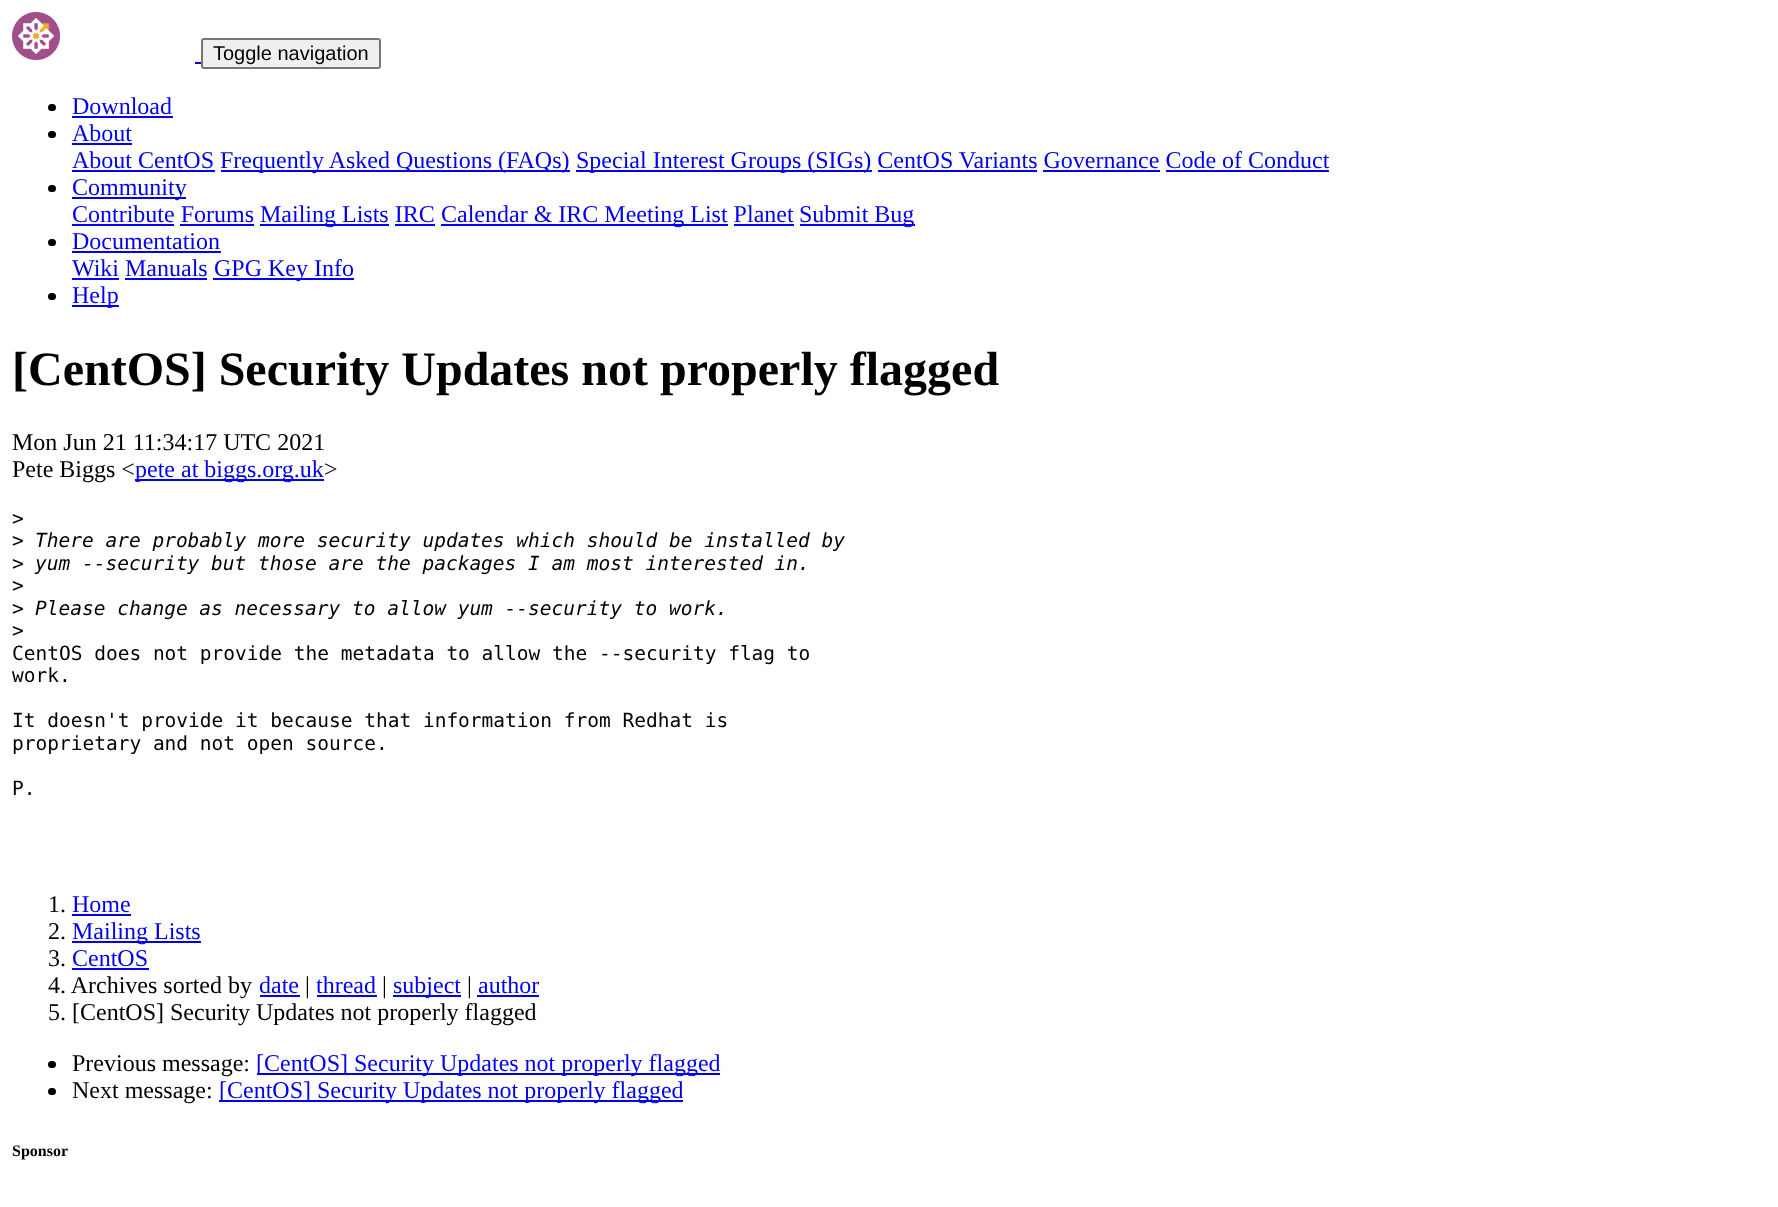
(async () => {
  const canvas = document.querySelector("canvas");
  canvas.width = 1778;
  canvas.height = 1207;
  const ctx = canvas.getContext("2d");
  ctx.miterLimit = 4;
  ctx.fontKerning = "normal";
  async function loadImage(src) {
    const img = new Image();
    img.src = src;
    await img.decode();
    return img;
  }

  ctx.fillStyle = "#ffffff";
  ctx.fillRect(0, 0, 1778, 1207);
  ctx.drawImage(await loadImage("img/1.png"), 12, 12, 48, 48);
  ctx.fillStyle = "#0000ee";
  ctx.fillRect(195, 62, 6, 2);
  ctx.fillStyle = "#efefef";
  ctx.beginPath();
  ctx.roundRect(202, 39, 178, 29, 2);
  ctx.fill();
  ctx.strokeStyle = "#767676";
  ctx.lineWidth = 2;
  ctx.stroke();
  ctx.fillStyle = "#000000";
  ctx.beginPath();
  ctx.roundRect(48, 104, 8, 7, 3.5);
  ctx.fill();
  ctx.fillStyle = "#0000ee";
  ctx.fillRect(72, 116, 101, 2);
  ctx.fillStyle = "#000000";
  ctx.beginPath();
  ctx.roundRect(48, 131, 8, 7, 3.5);
  ctx.fill();
  for (const [x, y, w, h, color] of [
    [72, 143, 60, 2, "#0000ee"],
    [72, 170, 143, 2, "#0000ee"],
    [221, 170, 349, 2, "#0000ee"],
    [576, 170, 296, 2, "#0000ee"],
    [878, 170, 159, 2, "#0000ee"],
    [1043, 170, 117, 2, "#0000ee"],
    [1166, 170, 163, 2, "#0000ee"],
  ]) {
    ctx.fillStyle = color;
    ctx.fillRect(x, y, w, h);
  }
  ctx.fillStyle = "#000000";
  ctx.beginPath();
  ctx.roundRect(48, 185, 8, 7, 3.5);
  ctx.fill();
  for (const [x, y, w, h, color] of [
    [72, 197, 114, 2, "#0000ee"],
    [72, 224, 102, 2, "#0000ee"],
    [260, 224, 129, 2, "#0000ee"],
    [441, 224, 287, 2, "#0000ee"],
    [800, 224, 115, 2, "#0000ee"],
    [180, 224, 74, 2, "#0000ee"],
    [395, 224, 40, 2, "#0000ee"],
    [734, 224, 60, 2, "#0000ee"],
  ]) {
    ctx.fillStyle = color;
    ctx.fillRect(x, y, w, h);
  }
  ctx.fillStyle = "#000000";
  ctx.beginPath();
  ctx.roundRect(48, 239, 8, 7, 3.5);
  ctx.fill();
  for (const [x, y, w, h, color] of [
    [72, 251, 149, 2, "#0000ee"],
    [72, 278, 47, 2, "#0000ee"],
    [213, 278, 141, 2, "#0000ee"],
    [125, 278, 82, 2, "#0000ee"],
  ]) {
    ctx.fillStyle = color;
    ctx.fillRect(x, y, w, h);
  }
  ctx.fillStyle = "#000000";
  ctx.beginPath();
  ctx.roundRect(48, 293, 8, 7, 3.5);
  ctx.fill();
  for (const [x, y, w, h, color] of [
    [72, 305, 47, 2, "#0000ee"],
    [135, 479, 189, 2, "#0000ee"],
    [72, 914, 59, 2, "#0000ee"],
    [72, 941, 129, 2, "#0000ee"],
    [72, 968, 77, 2, "#0000ee"],
    [260, 995, 40, 2, "#0000ee"],
    [317, 995, 60, 2, "#0000ee"],
    [393, 995, 68, 2, "#0000ee"],
    [477, 995, 62, 2, "#0000ee"],
  ]) {
    ctx.fillStyle = color;
    ctx.fillRect(x, y, w, h);
  }
  ctx.fillStyle = "#000000";
  ctx.beginPath();
  ctx.roundRect(48, 1061, 8, 7, 3.5);
  ctx.fill();
  ctx.fillStyle = "#0000ee";
  ctx.fillRect(257, 1073, 463, 2);
  ctx.fillStyle = "#000000";
  ctx.beginPath();
  ctx.roundRect(48, 1088, 8, 7, 3.5);
  ctx.fill();
  ctx.fillStyle = "#0000ee";
  ctx.fillRect(219, 1100, 464, 2);
  ctx.font = "20px Liberation Sans";
  ctx.fillStyle = "#000000";
  ctx.fillText("Toggle navigation", 213, 60);
  ctx.font = "24px Liberation Serif";
  ctx.fillStyle = "#0000ee";
  for (const [text, x, y] of [
    ["Download", 72, 114],
    ["About", 72, 141],
    ["About CentOS", 72, 168],
    ["Frequently Asked Questions (FAQs)", 220, 168],
    ["Special Interest Groups (SIGs) CentOS Variants Governance Code of Conduct", 576, 168],
    ["Community", 72, 195],
    ["Contribute Forums", 72, 222],
    ["Mailing Lists IRC", 260, 222],
    ["Calendar & IRC Meeting List Planet", 441, 222],
    ["Submit Bug", 799, 222],
    ["Documentation", 72, 249],
    ["Wiki Manuals", 72, 276],
    ["GPG Key Info", 214, 276],
    ["Help", 72, 303],
  ]) {
    ctx.fillText(text, x, y);
  }
  ctx.font = "bold 48px Liberation Serif";
  ctx.fillStyle = "#000000";
  ctx.fillText("[CentOS] Security Updates not properly flagged", 12, 385);
  ctx.font = "24px Liberation Serif";
  ctx.fillText("Mon Jun 21 11:34:17 UTC 2021", 12, 450);
  ctx.fillText("Pete Biggs <", 12, 477);
  ctx.fillStyle = "#0000ee";
  ctx.fillText("pete at biggs.org.uk", 135, 477);
  ctx.fillStyle = "#000000";
  ctx.fillText(">", 324, 477);
  ctx.font = "19.5px DejaVu Sans Mono";
  ctx.fillText(">", 12, 525);
  ctx.fillText(">", 12, 547);
  ctx.font = "italic 19.5px DejaVu Sans Mono";
  ctx.fillText("There are probably more security updates which should be installed by", 35, 547);
  ctx.font = "19.5px DejaVu Sans Mono";
  ctx.fillText(">", 12, 570);
  ctx.font = "italic 19.5px DejaVu Sans Mono";
  ctx.fillText("yum --security but those are the packages I am most interested in.", 35, 570);
  ctx.font = "19.5px DejaVu Sans Mono";
  ctx.fillText(">", 12, 592);
  ctx.fillText(">", 12, 615);
  ctx.font = "italic 19.5px DejaVu Sans Mono";
  ctx.fillText("Please change as necessary to allow yum --security to work.", 35, 615);
  ctx.font = "19.5px DejaVu Sans Mono";
  for (const [text, x, y] of [
    [">", 12, 637],
    ["CentOS does not provide the metadata to allow the --security flag to", 12, 660],
    ["work.", 12, 682],
    ["It doesn't provide it because that information from Redhat is", 12, 727],
    ["proprietary and not open source.", 12, 750],
    ["P.", 12, 795],
  ]) {
    ctx.fillText(text, x, y);
  }
  ctx.font = "24px Liberation Serif";
  ctx.fillText("1.", 48, 912);
  ctx.fillStyle = "#0000ee";
  ctx.fillText("Home", 72, 912);
  ctx.fillStyle = "#000000";
  ctx.fillText("2.", 48, 939);
  ctx.fillStyle = "#0000ee";
  ctx.fillText("Mailing Lists", 72, 939);
  ctx.fillStyle = "#000000";
  ctx.fillText("3.", 48, 966);
  ctx.fillStyle = "#0000ee";
  ctx.fillText("CentOS", 72, 966);
  ctx.fillStyle = "#000000";
  ctx.fillText("4. Archives sorted by", 48, 993);
  ctx.fillStyle = "#0000ee";
  ctx.fillText("date", 259, 993);
  ctx.fillStyle = "#000000";
  ctx.fillText("|", 305, 993);
  ctx.fillStyle = "#0000ee";
  ctx.fillText("thread", 316, 993);
  ctx.fillStyle = "#000000";
  ctx.fillText("|", 382, 993);
  ctx.fillStyle = "#0000ee";
  ctx.fillText("subject", 393, 993);
  ctx.fillStyle = "#000000";
  ctx.fillText("|", 467, 993);
  ctx.fillStyle = "#0000ee";
  ctx.fillText("author", 478, 993);
  ctx.fillStyle = "#000000";
  ctx.fillText("5. [CentOS] Security Updates not properly flagged", 48, 1020);
  ctx.fillText("Previous message:", 72, 1071);
  ctx.fillStyle = "#0000ee";
  ctx.fillText("[CentOS] Security Updates not properly flagged", 256, 1071);
  ctx.fillStyle = "#000000";
  ctx.fillText("Next message:", 72, 1098);
  ctx.fillStyle = "#0000ee";
  ctx.fillText("[CentOS] Security Updates not properly flagged", 219, 1098);
  ctx.font = "bold 16px Liberation Serif";
  ctx.fillStyle = "#000000";
  ctx.fillText("Sponsor", 12, 1156);
})();
